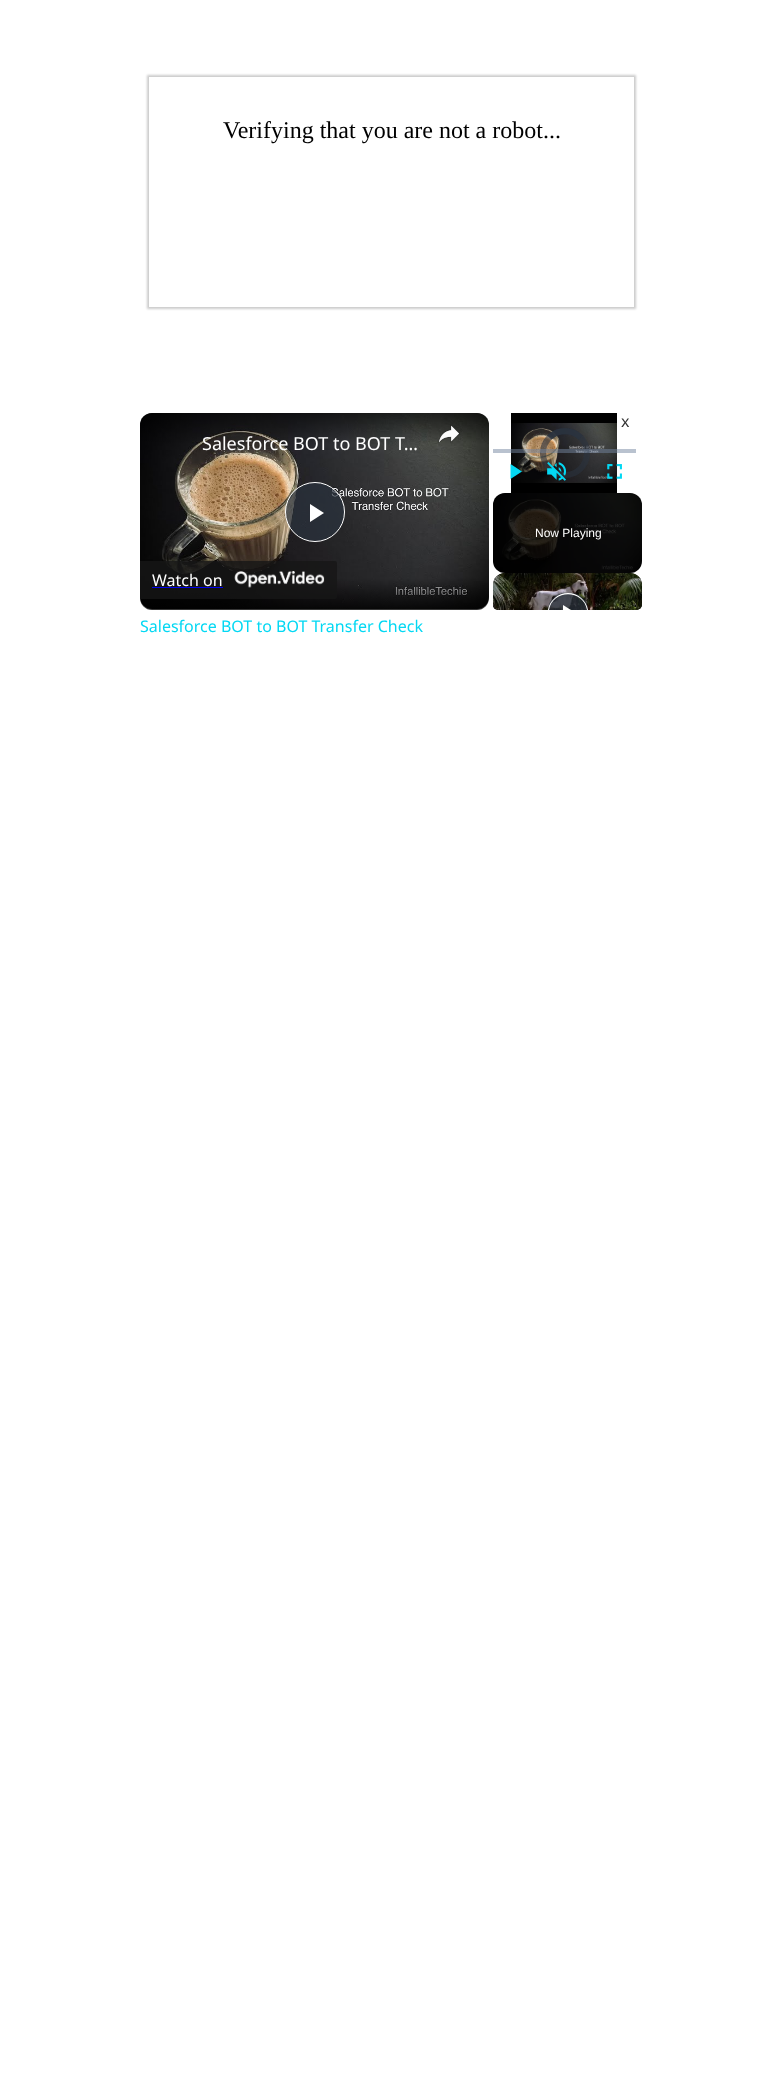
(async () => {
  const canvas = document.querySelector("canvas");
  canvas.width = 783;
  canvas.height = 2083;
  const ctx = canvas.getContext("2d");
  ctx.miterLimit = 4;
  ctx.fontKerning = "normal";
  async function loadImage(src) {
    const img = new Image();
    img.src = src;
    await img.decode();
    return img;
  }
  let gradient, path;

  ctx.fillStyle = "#ffffff";
  ctx.fillRect(0, 0, 783, 2083);
  ctx.save();
  path = new Path2D("M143 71H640V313H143ZM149 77H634V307H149Z");
  ctx.clip(path, "evenodd");
  ctx.fillStyle = "rgba(0, 0, 0, 0.2)";
  ctx.filter = "blur(1px)";
  ctx.beginPath();
  ctx.rect(147, 75, 489, 234);
  ctx.fill();
  ctx.filter = "none";
  ctx.restore();
  ctx.drawImage(await loadImage("img/1.png"), 140, 413, 349, 196);
  ctx.fillStyle = "rgba(43, 51, 63, 0.7)";
  ctx.beginPath();
  ctx.arc(315, 512, 29.5, 0, Math.PI * 2);
  ctx.fill();
  ctx.strokeStyle = "#ffffff";
  ctx.stroke();
  ctx.fillStyle = "#ffffff";
  path = new Path2D("M310 504V522L324 513Z");
  ctx.fill(path);
  gradient = ctx.createLinearGradient(315, 413, 315, 610);
  gradient.addColorStop(0, "rgba(0, 0, 0, 0.6)");
  gradient.addColorStop(0.16, "rgba(0, 0, 0, 0)");
  gradient.addColorStop(0.84, "rgba(0, 0, 0, 0)");
  gradient.addColorStop(1, "rgba(0, 0, 0, 0.8)");
  ctx.fillStyle = gradient;
  ctx.beginPath();
  ctx.roundRect(140, 413, 349, 197, 12);
  ctx.fill();
  ctx.drawImage(await loadImage("img/2.png"), 438, 424, 22, 19);
  ctx.fillStyle = "rgba(23, 23, 23, 0.8)";
  ctx.beginPath();
  ctx.roundRect(140, 561, 197, 38, [0, 2, 2, 0]);
  ctx.fill();
  ctx.fillStyle = "#0000ee";
  ctx.fillRect(152, 587, 71, 1);
  ctx.drawImage(await loadImage("img/3.png"), 234, 571, 91, 17);
  ctx.drawImage(await loadImage("img/4.png"), 511, 413, 106, 80);
  ctx.beginPath();
  ctx.arc(565, 453, 22, 0, Math.PI * 2);
  ctx.strokeStyle = "rgba(43, 51, 63, 0.59)";
  ctx.lineWidth = 6;
  ctx.stroke();
  path = new Path2D("M549.5 437.5C558 429 572 429 580.5 437.5");
  ctx.stroke(path);
  path = new Path2D("M549.5 437.5C558 429 572 429 580.5 437.5");
  ctx.stroke(path);
  ctx.fillStyle = "rgba(115, 133, 159, 0.5)";
  ctx.fillRect(493, 449, 143, 4);
  ctx.fillStyle = "#03d8f3";
  path = new Path2D("M510.5 464V479L522 471.5Z");
  ctx.fill(path);
  ctx.drawImage(await loadImage("img/5.png"), 547, 462, 20, 19);
  ctx.drawImage(await loadImage("img/6.png"), 607, 464, 15, 15);
  ctx.fillStyle = "#000000";
  ctx.beginPath();
  ctx.roundRect(493, 493, 149, 80, 12);
  ctx.fill();
  ctx.drawImage(await loadImage("img/7.png"), 493, 493, 149, 80);
  ctx.save();
  ctx.beginPath();
  ctx.roundRect(489, 413, 153, 197, 5);
  ctx.clip();
  ctx.beginPath();
  ctx.roundRect(493, 573, 149, 37, [12, 12, 5, 5]);
  ctx.fill();
  ctx.restore();
  ctx.drawImage(await loadImage("img/8.png"), 493, 573, 149, 37);
  ctx.fillStyle = "rgba(43, 51, 63, 0.7)";
  ctx.beginPath();
  ctx.roundRect(548, 593, 40, 17, [20, 20, 0, 0]);
  ctx.fill();
  ctx.fillStyle = "#ffffff";
  path = new Path2D("M568 593C578 593 586.5 600.5 588 610H587C583.5 589 552.5 589 549 610H548C549.5 600.5 558 593 568 593Z");
  ctx.fill(path);
  path = new Path2D("M563 605L571 610H563Z");
  ctx.fill(path);
  ctx.font = "24px Liberation Serif";
  ctx.fillStyle = "#000000";
  ctx.fillText("Verifying that you are not a robot...", 223, 138);
  ctx.font = "18px Noto Sans";
  ctx.fillStyle = "#ffffff";
  ctx.fillText("Salesforce BOT to BOT T…", 202, 450);
  ctx.font = "16px Noto Sans";
  ctx.fillText("Watch on", 152, 586);
  ctx.fillStyle = "#333333";
  ctx.fillText("x", 621, 427);
  ctx.font = "12px Liberation Sans";
  ctx.fillStyle = "#ffffff";
  ctx.fillText("Now Playing", 535, 537);
  ctx.font = "16px Noto Sans";
  ctx.fillStyle = "#03d8f3";
  ctx.fillText("Salesforce BOT to BOT Transfer Check", 140, 632);
})();
